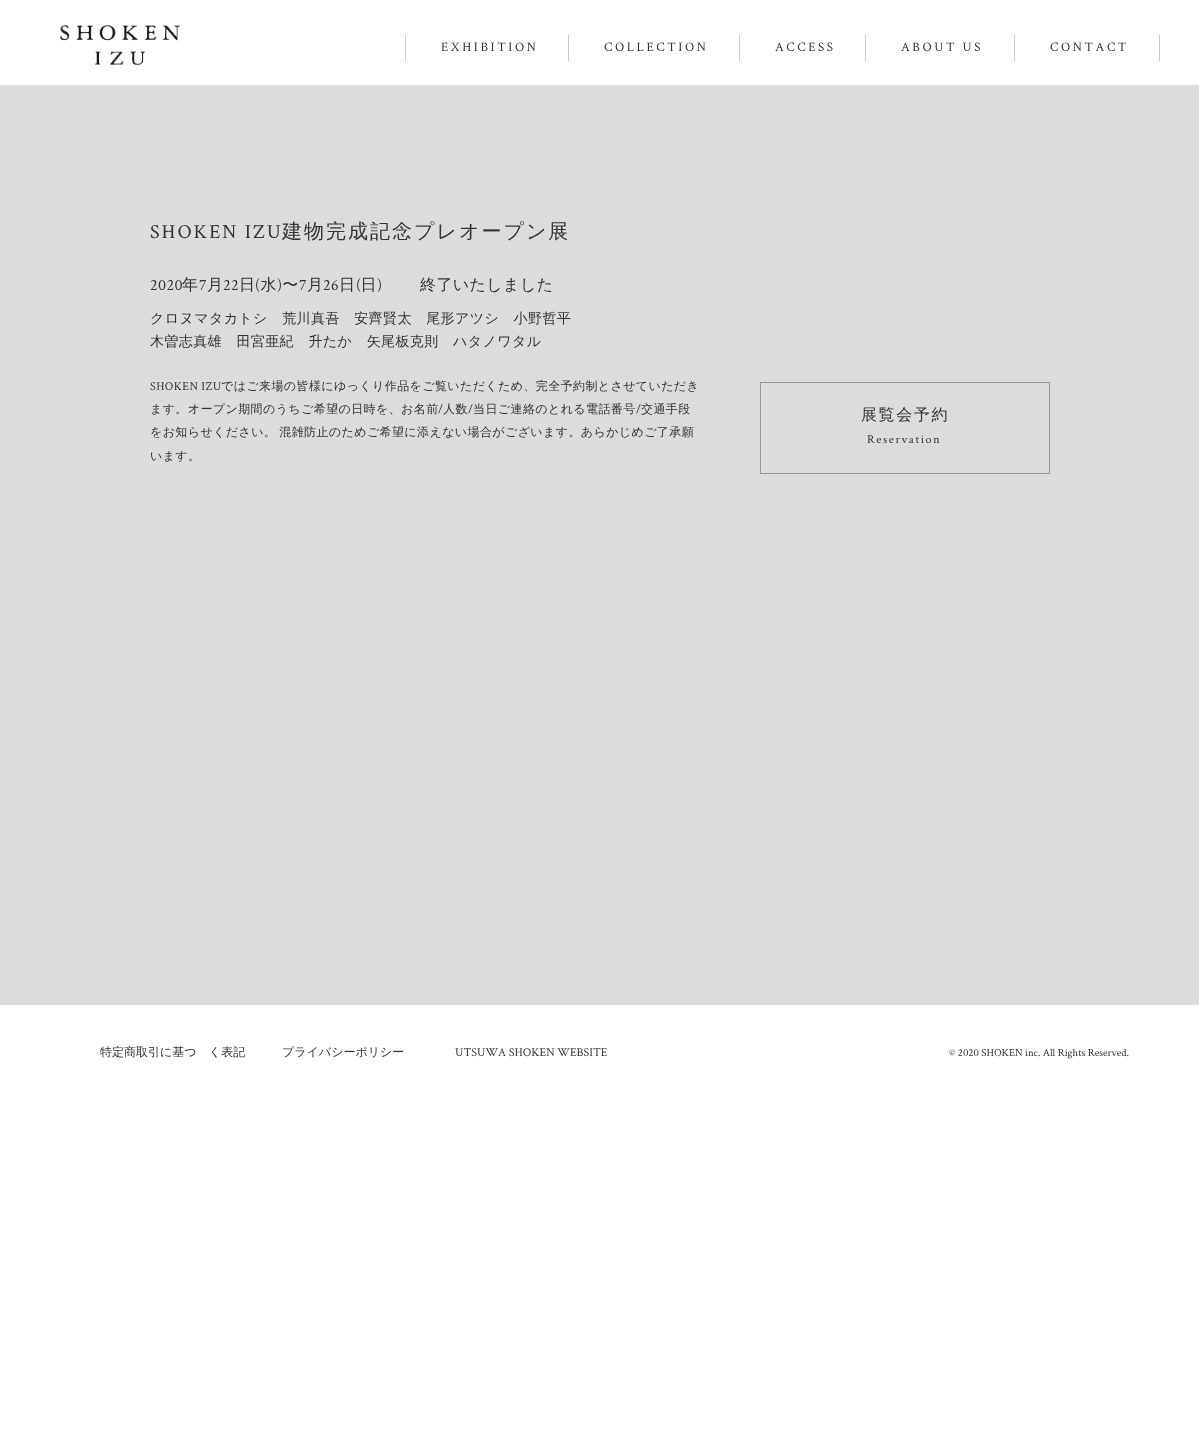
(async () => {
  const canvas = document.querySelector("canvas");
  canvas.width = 1199;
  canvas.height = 1449;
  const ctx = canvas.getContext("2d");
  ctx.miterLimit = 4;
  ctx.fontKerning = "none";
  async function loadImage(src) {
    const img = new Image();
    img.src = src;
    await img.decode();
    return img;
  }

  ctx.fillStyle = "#ffffff";
  ctx.fillRect(0, 0, 1199, 1449);
  ctx.fillStyle = "#dcdcdc";
  ctx.fillRect(0, 85, 1199, 920);
  ctx.drawImage(await loadImage("img/1.png"), 59, 25, 121, 40);
  for (const [x, y, w, h, color] of [
    [405, 35, 1, 26, "#cccccc"],
    [568, 35, 1, 26, "#cccccc"],
    [739, 35, 1, 26, "#cccccc"],
    [865, 35, 1, 26, "#cccccc"],
    [1159, 35, 1, 26, "#cccccc"],
    [1014, 35, 1, 26, "#cccccc"],
  ]) {
    ctx.fillStyle = color;
    ctx.fillRect(x, y, w, h);
  }
  ctx.strokeStyle = "#999999";
  ctx.strokeRect(760.5, 382.5, 289, 91);
  ctx.letterSpacing = "2.6px";
  ctx.font = "13px Crimson Text";
  ctx.fillStyle = "#333333";
  for (const [text, x, y] of [
    ["EXHIBITION", 441, 51],
    ["COLLECTION", 604, 51],
    ["ACCESS", 775, 51],
    ["ABOUT US", 901, 51],
    ["CONTACT", 1050, 51],
  ]) {
    ctx.fillText(text, x, y);
  }
  ctx.letterSpacing = "2px";
  ctx.font = "20px Crimson Text";
  ctx.fillText("SHOKEN IZU", 150, 238);
  ctx.font = "500 20px WenQuanYi Zen Hei";
  ctx.fillText("建物完成記念プレオープン展", 282, 238);
  ctx.letterSpacing = "0.4px";
  ctx.font = "500 16px WenQuanYi Zen Hei";
  for (const [text, x, y] of [
    ["年", 182, 290],
    ["月", 207, 290],
    ["日 水 〜", 239, 290],
    ["月", 307, 290],
    ["日 日", 339, 290],
    ["終了いたしました", 420, 290],
  ]) {
    ctx.fillText(text, x, y);
  }
  ctx.font = "16px Crimson Text";
  for (const [text, x, y] of [
    ["2020", 150, 290],
    ["7", 199, 290],
    ["22", 223, 290],
    ["(", 255, 290],
    [")", 277, 290],
    ["7", 299, 290],
    ["26", 323, 290],
    ["(", 356, 290],
    [")", 377, 290],
  ]) {
    ctx.fillText(text, x, y);
  }
  ctx.font = "500 14px WenQuanYi Zen Hei";
  ctx.fillText("クロヌマタカトシ　荒川真吾　安齊賢太　尾形アツシ　小野哲平", 150, 323);
  ctx.fillText("木曽志真雄　田宮亜紀　升たか　矢尾板克則　ハタノワタル", 150, 346);
  ctx.font = "12px Crimson Text";
  ctx.fillText("SHOKEN IZU", 150, 390);
  ctx.font = "500 12px WenQuanYi Zen Hei";
  ctx.fillText("ではご来場の皆様にゆっくり作品をご覧いただくため、完全予約制とさせていただき", 221, 390);
  ctx.fillText("ます。オープン期間のうちご希望の日時を、お名前", 150, 413);
  ctx.font = "12px Crimson Text";
  ctx.fillText("/", 438, 413);
  ctx.font = "500 12px WenQuanYi Zen Hei";
  ctx.fillText("人数", 443, 413);
  ctx.font = "12px Crimson Text";
  ctx.fillText("/", 468, 413);
  ctx.font = "500 12px WenQuanYi Zen Hei";
  ctx.fillText("当日ご連絡のとれる電話番号", 473, 413);
  ctx.font = "12px Crimson Text";
  ctx.fillText("/", 636, 413);
  ctx.font = "500 12px WenQuanYi Zen Hei";
  ctx.fillText("交通手段", 641, 413);
  ctx.wordSpacing = "-1px";
  ctx.fillText("をお知らせください。 混雑防止のためご希望に添えない場合がございます。あらかじめご了承願", 150, 436);
  ctx.wordSpacing = "0px";
  ctx.fillText("います。", 150, 460);
  ctx.letterSpacing = "1.6px";
  ctx.font = "500 16px WenQuanYi Zen Hei";
  ctx.fillText("展覧会予約", 861, 420);
  ctx.font = "12px Crimson Text";
  ctx.fillText("Reservation", 867, 443);
  ctx.letterSpacing = "0px";
  ctx.font = "500 12px WenQuanYi Zen Hei";
  ctx.fillText("特定商取引に基づく表記", 100, 1056);
  ctx.fillText("プライバシーポリシー", 282, 1056);
  ctx.font = "12px Crimson Text";
  ctx.fillText("UTSUWA SHOKEN WEBSITE", 455, 1056);
  ctx.font = "10.8px Crimson Text";
  ctx.fillText("© 2020 SHOKEN inc. All Rights Reserved.", 949, 1056);
})();
